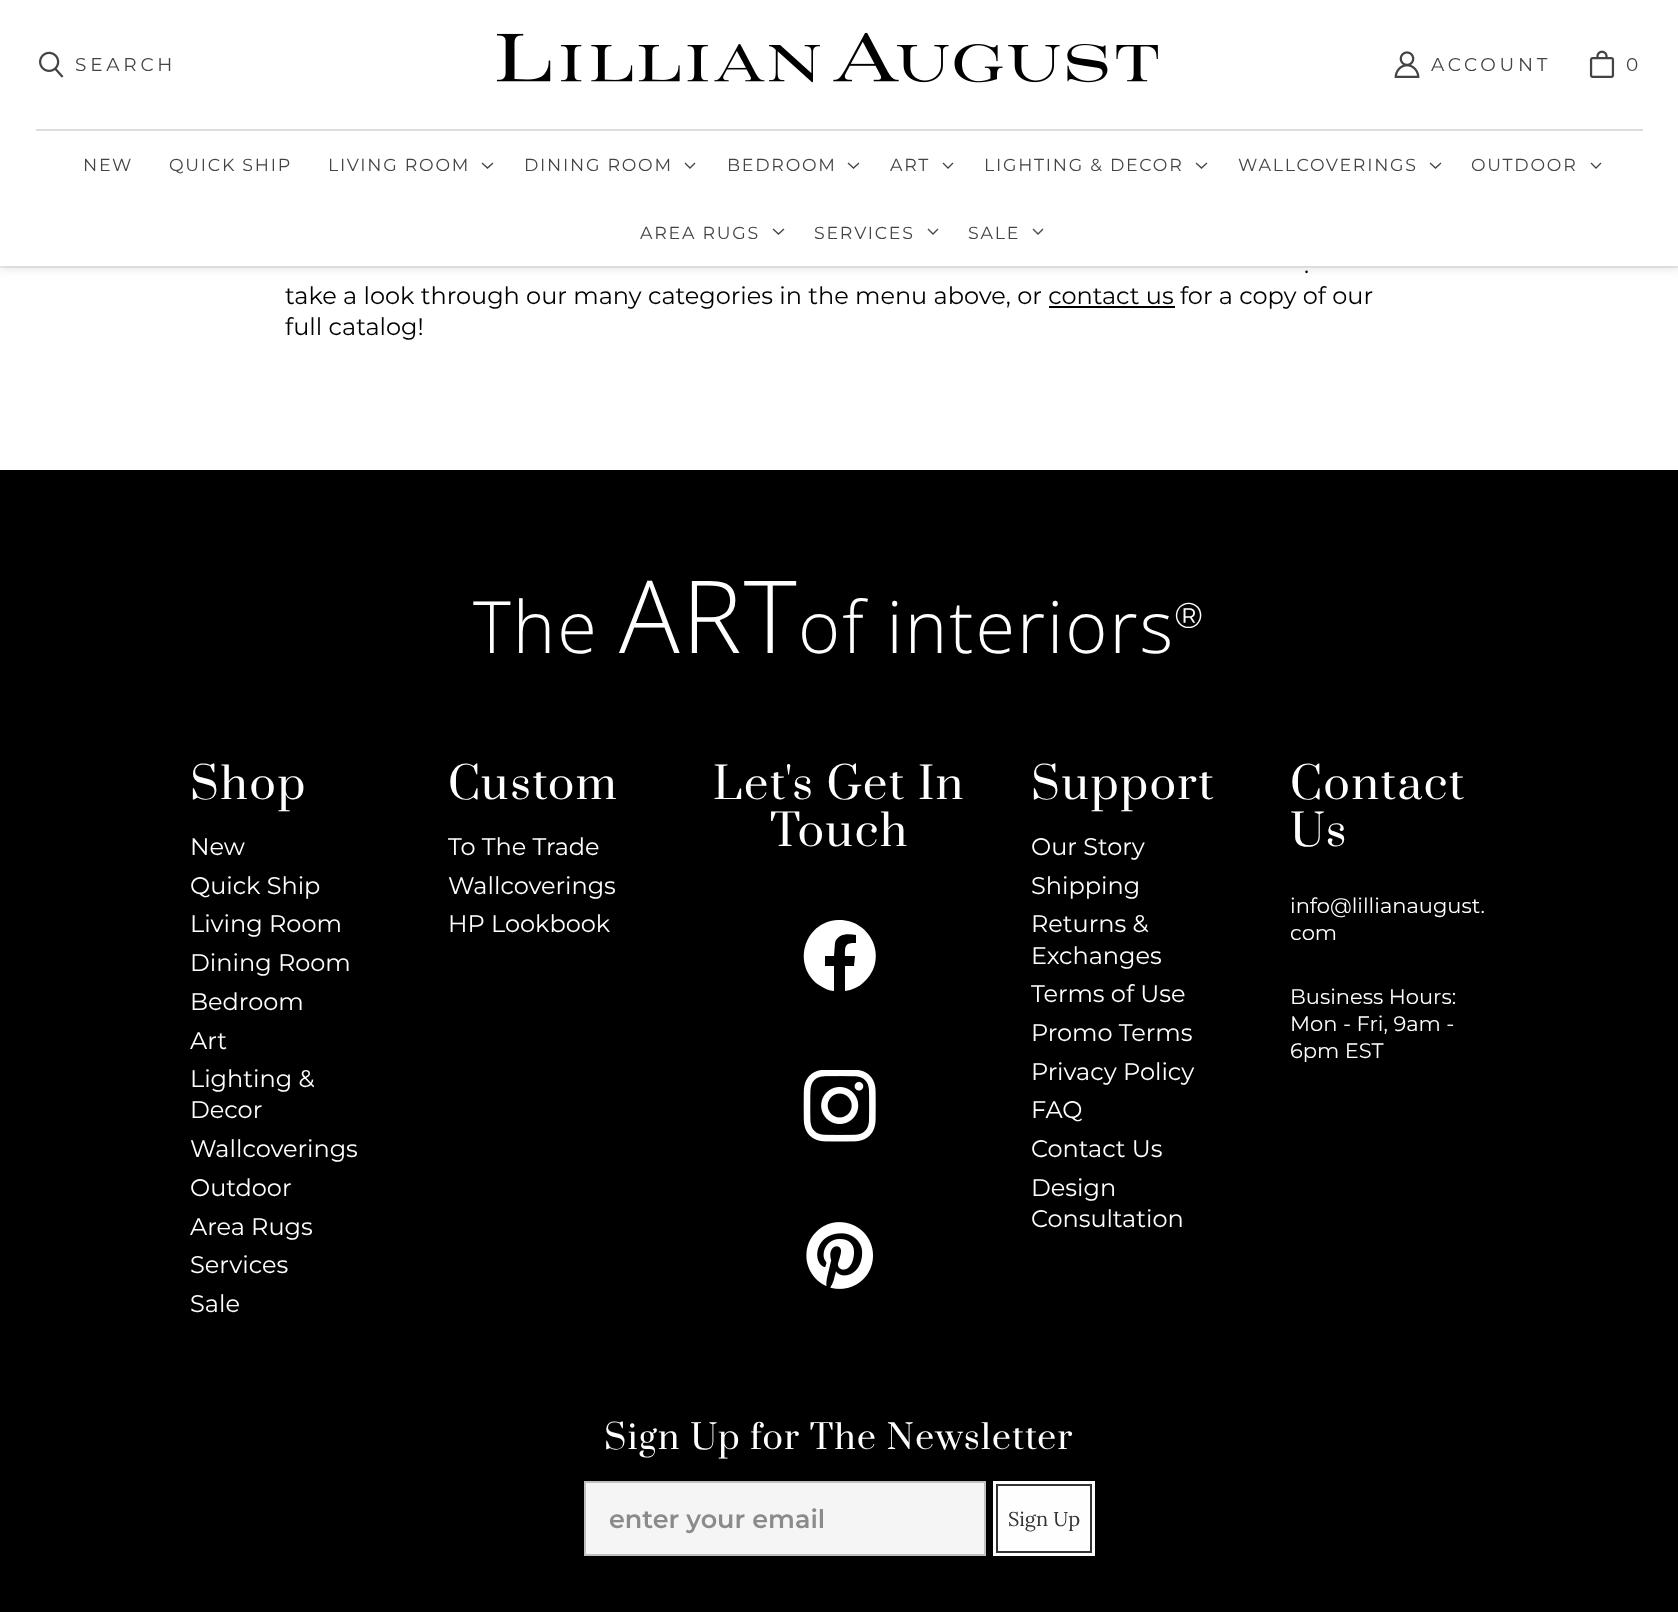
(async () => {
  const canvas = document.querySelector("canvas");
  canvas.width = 1678;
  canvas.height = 1612;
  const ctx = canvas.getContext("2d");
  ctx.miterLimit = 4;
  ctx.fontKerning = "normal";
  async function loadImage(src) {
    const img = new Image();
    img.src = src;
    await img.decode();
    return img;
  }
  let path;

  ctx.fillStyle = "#ffffff";
  ctx.fillRect(0, 0, 1678, 1612);
  ctx.fillStyle = "#eeeeee";
  ctx.fillRect(0, 266, 1678, 2);
  ctx.fillStyle = "rgba(0, 0, 0, 0.15)";
  ctx.filter = "blur(6px)";
  ctx.beginPath();
  ctx.rect(0, 2, 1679, 265);
  ctx.fill();
  ctx.filter = "none";
  ctx.fillStyle = "#ffffff";
  ctx.fillRect(0, 0, 1678, 266);
  ctx.drawImage(await loadImage("img/1.png"), 39, 51, 25, 27);
  ctx.drawImage(await loadImage("img/2.png"), 496, 32, 662, 51);
  ctx.drawImage(await loadImage("img/3.png"), 1394, 51, 26, 27);
  ctx.drawImage(await loadImage("img/4.png"), 1589, 50, 26, 28);
  ctx.fillStyle = "#dddddd";
  ctx.fillRect(36, 129, 1607, 2);
  path = new Path2D("M482 163L487.5 168L493 163");
  ctx.strokeStyle = "#444444";
  ctx.lineWidth = 1.3;
  ctx.stroke(path);
  path = new Path2D("M685 163L690 168L695 163");
  ctx.stroke(path);
  path = new Path2D("M848 163L853.5 168L859 163");
  ctx.stroke(path);
  path = new Path2D("M943 163L948 168L953 163");
  ctx.stroke(path);
  path = new Path2D("M1196 163L1201.5 168L1207 163");
  ctx.stroke(path);
  path = new Path2D("M1430 163L1435.5 168L1441 163");
  ctx.stroke(path);
  path = new Path2D("M1591 163L1596 168L1601 163");
  ctx.stroke(path);
  path = new Path2D("M773 229L778.5 234L784 229");
  ctx.stroke(path);
  path = new Path2D("M928 229L933 234L938 229");
  ctx.stroke(path);
  path = new Path2D("M1033 229L1038 234L1043 229");
  ctx.stroke(path);
  ctx.fillStyle = "#000000";
  ctx.fillRect(1049, 306, 126, 2);
  ctx.fillRect(0, 470, 1678, 1142);
  ctx.fillStyle = "#ffffff";
  path = new Path2D("M838 920C803 922 792 966 819 985C824 988 829 991 834 991V966H825V956H834L835 943C837 934 847 933 856 935V943C845 943 845 945 845 956H855L854 966H845V991C852 990 859 987 864 982C889 960 872 919 838 920Z");
  ctx.fill(path, "evenodd");
  ctx.drawImage(await loadImage("img/5.png"), 803, 1070, 73, 72);
  ctx.drawImage(await loadImage("img/6.png"), 806, 1222, 67, 67);
  ctx.fillStyle = "#f5f5f5";
  ctx.beginPath();
  ctx.rect(585, 1482, 400, 73);
  ctx.fill();
  ctx.strokeStyle = "#c0c0c0";
  ctx.lineWidth = 2;
  ctx.stroke();
  ctx.fillStyle = "#fefefe";
  ctx.fillRect(993, 1481, 102, 75);
  ctx.strokeStyle = "#333333";
  ctx.strokeRect(997, 1485, 94, 67);
  ctx.letterSpacing = "3.75px";
  ctx.font = "18.5px Montserrat";
  ctx.fillStyle = "#444444";
  for (const [text, x, y] of [
    ["SEARCH", 75, 71],
    ["ACCOUNT", 1431, 71],
    ["0", 1626, 71],
  ]) {
    ctx.fillText(text, x, y);
  }
  ctx.letterSpacing = "1.75px";
  ctx.font = "17.4px Montserrat";
  for (const [text, x, y] of [
    ["NEW", 83, 171],
    ["QUICK SHIP", 169, 171],
    ["LIVING ROOM", 328, 171],
    ["DINING ROOM", 524, 171],
    ["BEDROOM", 727, 171],
    ["ART", 890, 171],
    ["LIGHTING & DECOR", 984, 171],
    ["WALLCOVERINGS", 1238, 171],
    ["OUTDOOR", 1471, 171],
    ["AREA RUGS", 640, 239],
    ["SERVICES", 814, 239],
    ["SALE", 968, 239],
  ]) {
    ctx.fillText(text, x, y);
  }
  ctx.letterSpacing = "0px";
  ctx.font = "24px Montserrat";
  ctx.fillStyle = "#000000";
  for (const [text, x, y] of [
    [".", 1304, 273],
    ["take a look through our many categories in the menu above, or contact us for a copy of our", 285, 304],
    ["full catalog!", 285, 335],
  ]) {
    ctx.fillText(text, x, y);
  }
  ctx.letterSpacing = "2px";
  ctx.font = "300 72px Open Sans";
  ctx.fillStyle = "#ffffff";
  ctx.fillText("The", 473, 653);
  ctx.font = "300 101px Open Sans";
  ctx.fillText("ART", 619, 653);
  ctx.font = "300 72px Open Sans";
  ctx.fillText("of interiors", 798, 653);
  ctx.font = "36px Montserrat";
  ctx.fillText("®", 1174, 628);
  ctx.letterSpacing = "1.75px";
  ctx.font = "43.25px Prata";
  ctx.fillText("Shop", 190, 799);
  ctx.letterSpacing = "0px";
  ctx.font = "24px Montserrat";
  for (const [text, x, y] of [
    ["New", 190, 855],
    ["Quick Ship", 190, 894],
    ["Living Room", 190, 932],
    ["Dining Room", 190, 971],
    ["Bedroom", 190, 1010],
    ["Art", 190, 1049],
    ["Lighting &", 190, 1087],
    ["Decor", 190, 1118],
    ["Wallcoverings", 190, 1157],
    ["Outdoor", 190, 1196],
    ["Area Rugs", 190, 1235],
    ["Services", 190, 1273],
    ["Sale", 190, 1312],
  ]) {
    ctx.fillText(text, x, y);
  }
  ctx.letterSpacing = "1.75px";
  ctx.font = "43.25px Prata";
  ctx.fillText("Custom", 448, 799);
  ctx.letterSpacing = "0px";
  ctx.font = "24px Montserrat";
  for (const [text, x, y] of [
    ["To The Trade", 448, 855],
    ["Wallcoverings", 448, 894],
    ["HP Lookbook", 448, 932],
  ]) {
    ctx.fillText(text, x, y);
  }
  ctx.letterSpacing = "1.75px";
  ctx.font = "43.25px Prata";
  for (const [text, x, y] of [
    ["Let's Get In", 713, 799],
    ["Touch", 770, 846],
    ["Support", 1031, 799],
  ]) {
    ctx.fillText(text, x, y);
  }
  ctx.letterSpacing = "0px";
  ctx.font = "24px Montserrat";
  for (const [text, x, y] of [
    ["Our Story", 1031, 855],
    ["Shipping", 1031, 894],
    ["Returns &", 1031, 932],
    ["Exchanges", 1031, 964],
    ["Terms of Use", 1031, 1002],
    ["Promo Terms", 1031, 1041],
    ["Privacy Policy", 1031, 1080],
    ["FAQ", 1031, 1118],
    ["Contact Us", 1031, 1157],
    ["Design", 1031, 1196],
    ["Consultation", 1031, 1227],
  ]) {
    ctx.fillText(text, x, y);
  }
  ctx.letterSpacing = "1.75px";
  ctx.font = "43.25px Prata";
  ctx.fillText("Contact", 1290, 799);
  ctx.fillText("Us", 1290, 846);
  ctx.letterSpacing = "0px";
  ctx.font = "21px Montserrat";
  for (const [text, x, y] of [
    ["info@lillianaugust.", 1290, 913],
    ["com", 1290, 940],
    ["Business Hours:", 1290, 1004],
    ["Mon - Fri, 9am -", 1290, 1031],
    ["6pm EST", 1290, 1058],
  ]) {
    ctx.fillText(text, x, y);
  }
  ctx.letterSpacing = "1.35px";
  ctx.font = "33.6px Prata";
  ctx.fillText("Sign Up for The Newsletter", 604, 1449);
  ctx.letterSpacing = "0px";
  ctx.font = "600 25.5px Montserrat";
  ctx.fillStyle = "#8b8b8b";
  ctx.fillText("enter your email", 609, 1528);
  ctx.font = "20px Lora";
  ctx.fillStyle = "#333333";
  ctx.fillText("Sign Up", 1008, 1526);
})();
